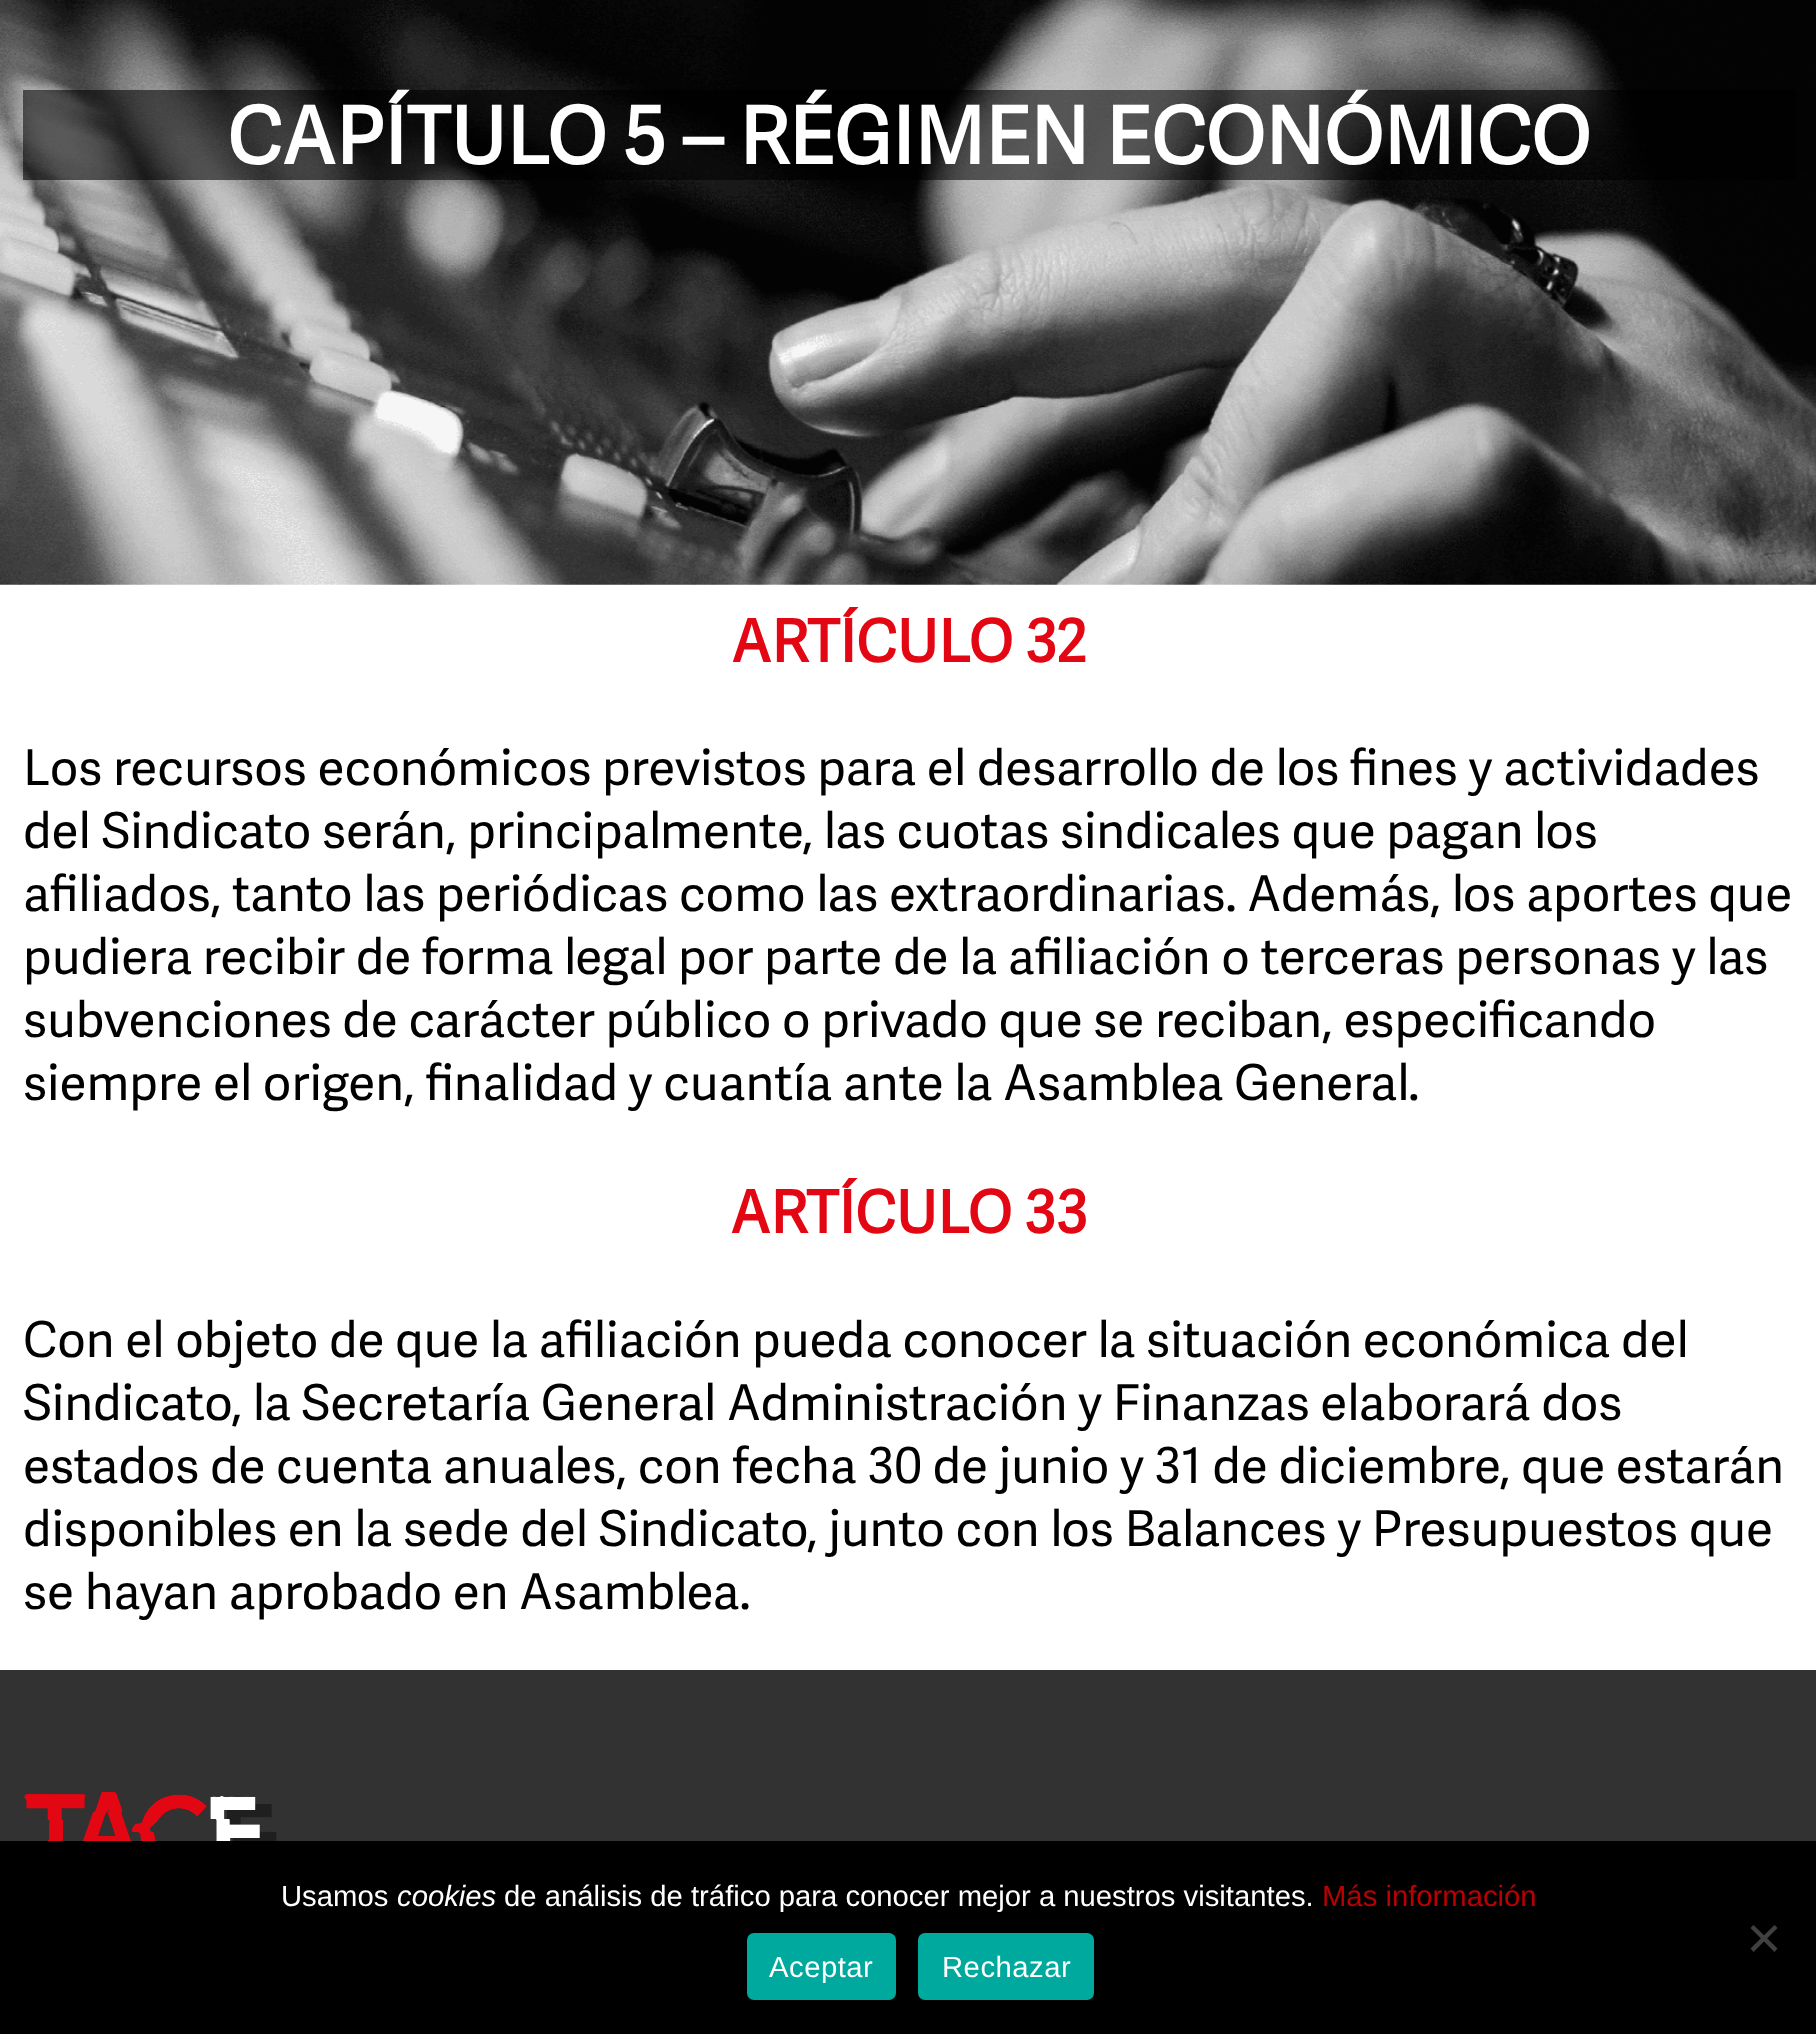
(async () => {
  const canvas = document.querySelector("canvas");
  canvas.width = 1816;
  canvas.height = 2034;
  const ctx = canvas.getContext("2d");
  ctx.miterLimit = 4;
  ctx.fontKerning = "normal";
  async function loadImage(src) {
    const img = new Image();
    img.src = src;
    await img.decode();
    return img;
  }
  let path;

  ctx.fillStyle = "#ffffff";
  ctx.fillRect(0, 0, 1816, 2034);
  ctx.drawImage(await loadImage("img/1.png"), 0, 0, 1816, 585);
  ctx.fillStyle = "rgba(0, 0, 0, 0.56)";
  ctx.fillRect(23, 90, 1773, 90);
  ctx.fillStyle = "#323232";
  ctx.fillRect(0, 1670, 1816, 171);
  ctx.drawImage(await loadImage("img/2.png"), 24, 1792, 253, 49);
  ctx.fillStyle = "#000000";
  ctx.fillRect(0, 1841, 1816, 193);
  ctx.fillStyle = "#404040";
  path = new Path2D("M1774.5 1925L1777.5 1928L1753.5 1952L1750.5 1948.5Z");
  ctx.fill(path);
  path = new Path2D("M1750.5 1928L1753.5 1925L1777.5 1948.5L1774.5 1952Z");
  ctx.fill(path);
  ctx.fillStyle = "#00a99d";
  ctx.beginPath();
  ctx.roundRect(747, 1933, 149, 67, 7);
  ctx.fill();
  ctx.beginPath();
  ctx.roundRect(918, 1933, 176, 67, 7);
  ctx.fill();
  ctx.font = "bold 78.75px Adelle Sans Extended";
  ctx.fillStyle = "#ffffff";
  ctx.fillText("CAPÍTULO 5 – RÉGIMEN ECONÓMICO", 227, 164);
  ctx.font = "bold 58.5px Adelle Sans Extended";
  ctx.fillStyle = "#e30613";
  ctx.fillText("ARTÍCULO 32", 731, 662);
  ctx.font = "49.5px Adelle Sans Extended";
  ctx.fillStyle = "#000000";
  for (const [text, x, y] of [
    ["Los recursos económicos previstos para el desarrollo de los fines y actividades", 23, 785],
    ["del Sindicato serán, principalmente, las cuotas sindicales que pagan los", 23, 848],
    ["afiliados, tanto las periódicas como las extraordinarias. Además, los aportes que", 23, 911],
    ["pudiera recibir de forma legal por parte de la afiliación o terceras personas y las", 23, 974],
    ["subvenciones de carácter público o privado que se reciban, especificando", 23, 1037],
    ["siempre el origen, finalidad y cuantía ante la Asamblea General.", 23, 1100],
  ]) {
    ctx.fillText(text, x, y);
  }
  ctx.font = "bold 58.5px Adelle Sans Extended";
  ctx.fillStyle = "#e30613";
  ctx.fillText("ARTÍCULO 33", 730, 1233);
  ctx.font = "49.5px Adelle Sans Extended";
  ctx.fillStyle = "#000000";
  for (const [text, x, y] of [
    ["Con el objeto de que la afiliación pueda conocer la situación económica del", 23, 1357],
    ["Sindicato, la Secretaría General Administración y Finanzas elaborará dos", 23, 1420],
    ["estados de cuenta anuales, con fecha 30 de junio y 31 de diciembre, que estarán", 23, 1483],
    ["disponibles en la sede del Sindicato, junto con los Balances y Presupuestos que", 23, 1546],
    ["se hayan aprobado en Asamblea.", 23, 1609],
  ]) {
    ctx.fillText(text, x, y);
  }
  ctx.font = "29.25px Liberation Sans";
  ctx.fillStyle = "#ffffff";
  ctx.fillText("Usamos", 281, 1906);
  ctx.font = "italic 29.25px Liberation Sans";
  ctx.fillText("cookies", 397, 1906);
  ctx.font = "29.25px Liberation Sans";
  ctx.fillText("de análisis de tráfico para conocer mejor a nuestros visitantes.", 504, 1906);
  ctx.fillStyle = "#ba0001";
  ctx.fillText("Más información", 1322, 1906);
  ctx.letterSpacing = "0.5px";
  ctx.fillStyle = "#ffffff";
  ctx.fillText("Aceptar", 769, 1977);
  ctx.fillText("Rechazar", 942, 1977);
})();
